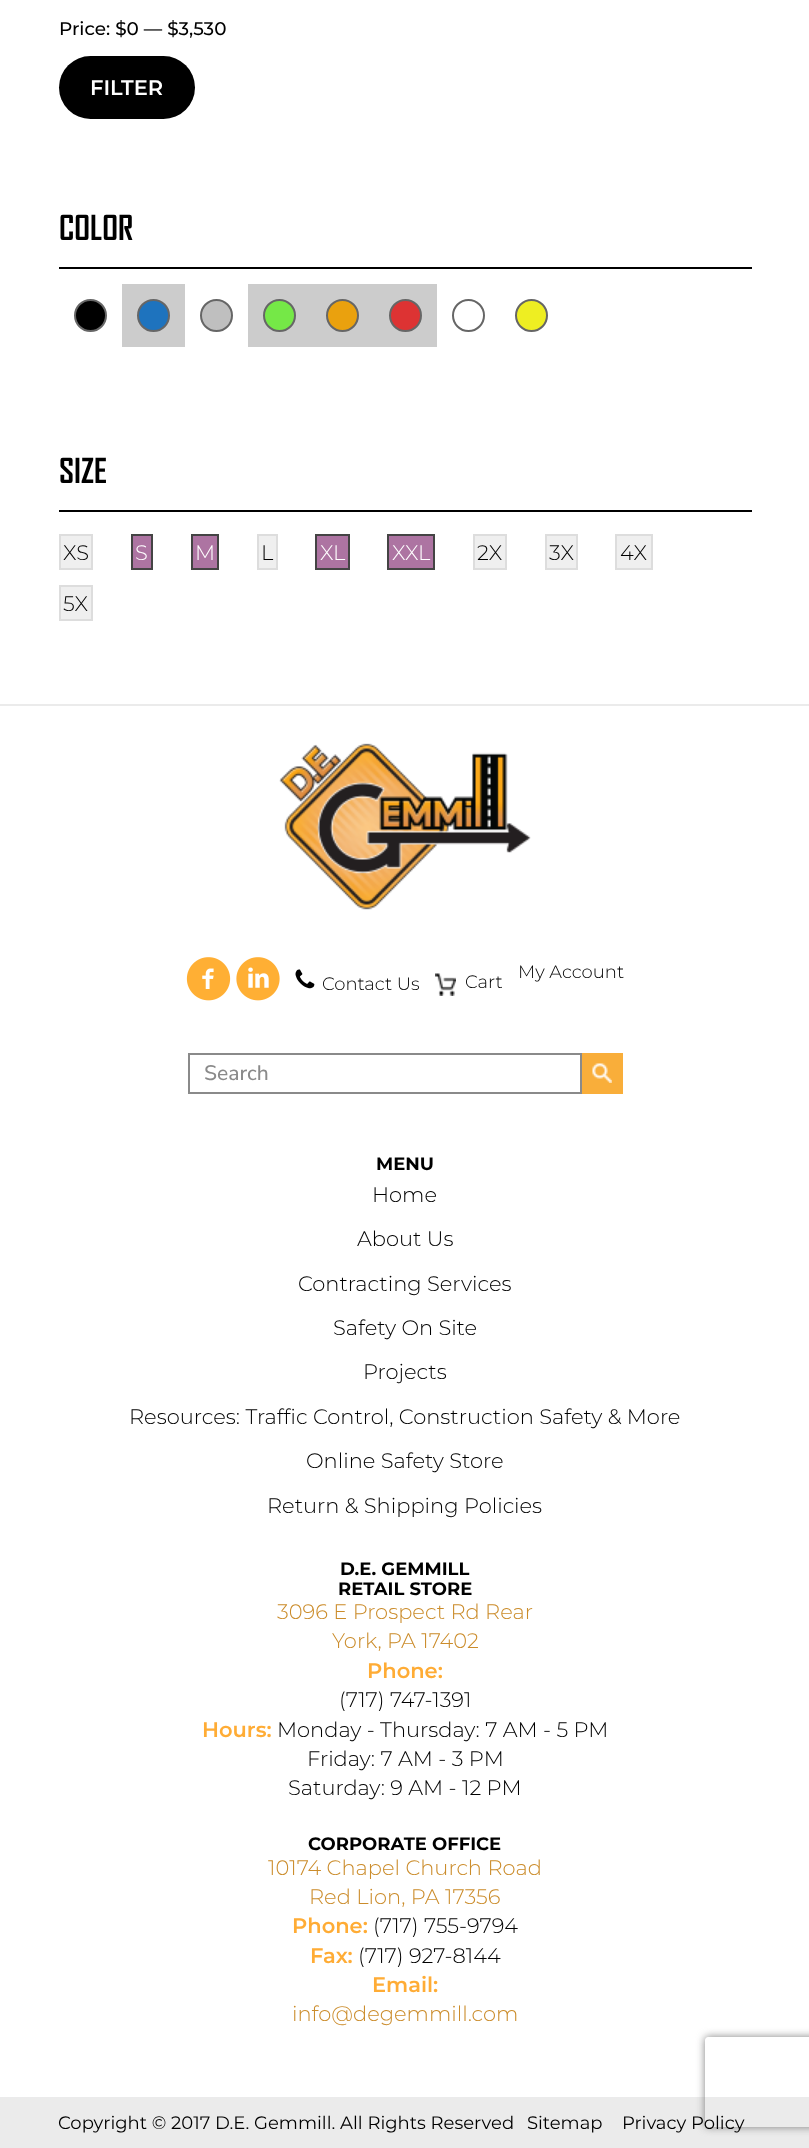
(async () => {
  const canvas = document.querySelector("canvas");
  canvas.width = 809;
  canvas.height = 2148;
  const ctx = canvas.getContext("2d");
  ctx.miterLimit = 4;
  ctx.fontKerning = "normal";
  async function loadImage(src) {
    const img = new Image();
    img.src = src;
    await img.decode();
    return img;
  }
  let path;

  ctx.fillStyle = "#ffffff";
  ctx.fillRect(0, 0, 809, 2148);
  ctx.fillStyle = "#000000";
  ctx.beginPath();
  ctx.roundRect(59, 56, 136, 63, 31.5);
  ctx.fill();
  ctx.fillRect(59, 267, 693, 2);
  ctx.beginPath();
  ctx.arc(90.5, 315.5, 15.5, 0, Math.PI * 2);
  ctx.fill();
  ctx.strokeStyle = "#666666";
  ctx.lineWidth = 2;
  ctx.stroke();
  ctx.fillStyle = "#cccccc";
  ctx.fillRect(122, 284, 63, 63);
  ctx.fillStyle = "#1e73be";
  ctx.beginPath();
  ctx.arc(153.5, 315.5, 15.5, 0, Math.PI * 2);
  ctx.fill();
  ctx.stroke();
  ctx.fillStyle = "#bfbfbf";
  ctx.beginPath();
  ctx.arc(216.5, 315.5, 15.5, 0, Math.PI * 2);
  ctx.fill();
  ctx.stroke();
  ctx.fillStyle = "#cccccc";
  ctx.fillRect(248, 284, 189, 63);
  ctx.fillStyle = "#75e847";
  ctx.beginPath();
  ctx.arc(279.5, 315.5, 15.5, 0, Math.PI * 2);
  ctx.fill();
  ctx.stroke();
  ctx.fillStyle = "#eaa10e";
  ctx.beginPath();
  ctx.arc(342.5, 315.5, 15.5, 0, Math.PI * 2);
  ctx.fill();
  ctx.stroke();
  ctx.fillStyle = "#dd3333";
  ctx.beginPath();
  ctx.arc(405.5, 315.5, 15.5, 0, Math.PI * 2);
  ctx.fill();
  ctx.stroke();
  ctx.beginPath();
  ctx.arc(468.5, 315.5, 15.5, 0, Math.PI * 2);
  ctx.stroke();
  ctx.fillStyle = "#eeee22";
  ctx.beginPath();
  ctx.arc(531.5, 315.5, 15.5, 0, Math.PI * 2);
  ctx.fill();
  ctx.stroke();
  ctx.fillStyle = "#000000";
  ctx.fillRect(59, 510, 693, 2);
  ctx.fillStyle = "#efefef";
  ctx.beginPath();
  ctx.rect(60, 535, 32, 34);
  ctx.fill();
  ctx.strokeStyle = "#dddddd";
  ctx.stroke();
  ctx.fillStyle = "#ad74a2";
  ctx.beginPath();
  ctx.rect(132, 535, 20, 34);
  ctx.fill();
  ctx.strokeStyle = "#444444";
  ctx.stroke();
  ctx.beginPath();
  ctx.rect(192, 535, 26, 34);
  ctx.fill();
  ctx.stroke();
  ctx.fillStyle = "#efefef";
  ctx.beginPath();
  ctx.rect(258, 535, 19, 34);
  ctx.fill();
  ctx.strokeStyle = "#dddddd";
  ctx.stroke();
  ctx.fillStyle = "#ad74a2";
  ctx.beginPath();
  ctx.rect(316, 535, 33, 34);
  ctx.fill();
  ctx.strokeStyle = "#444444";
  ctx.stroke();
  ctx.beginPath();
  ctx.rect(388, 535, 46, 34);
  ctx.fill();
  ctx.stroke();
  ctx.fillStyle = "#efefef";
  ctx.beginPath();
  ctx.rect(474, 535, 32, 34);
  ctx.fill();
  ctx.strokeStyle = "#dddddd";
  ctx.stroke();
  ctx.beginPath();
  ctx.rect(546, 535, 31, 34);
  ctx.fill();
  ctx.stroke();
  ctx.beginPath();
  ctx.rect(616, 535, 36, 34);
  ctx.fill();
  ctx.stroke();
  ctx.beginPath();
  ctx.rect(60, 586, 32, 34);
  ctx.fill();
  ctx.stroke();
  ctx.fillStyle = "#ebebeb";
  ctx.fillRect(0, 704, 809, 2);
  ctx.drawImage(await loadImage("img/1.png"), 279, 743, 252, 167);
  ctx.drawImage(await loadImage("img/2.png"), 186, 957, 45, 44);
  ctx.drawImage(await loadImage("img/3.png"), 236, 957, 44, 44);
  ctx.drawImage(await loadImage("img/4.png"), 295, 969, 20, 20);
  ctx.drawImage(await loadImage("img/5.png"), 435, 973, 21, 23);
  ctx.strokeStyle = "#8a8a8a";
  ctx.strokeRect(189, 1054, 392, 39);
  ctx.fillStyle = "#f9ae3a";
  ctx.fillRect(582, 1053, 41, 41);
  ctx.drawImage(await loadImage("img/6.png"), 592, 1063, 20, 20);
  ctx.fillStyle = "#ebebeb";
  ctx.fillRect(0, 2097, 809, 51);
  ctx.save();
  path = new Path2D("M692 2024H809V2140H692ZM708 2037H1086C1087.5 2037 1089 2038.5 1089 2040V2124C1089 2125.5 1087.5 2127 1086 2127H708C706.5 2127 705 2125.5 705 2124V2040C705 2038.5 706.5 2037 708 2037Z");
  ctx.clip(path, "evenodd");
  ctx.fillStyle = "#808080";
  ctx.filter = "blur(4px)";
  ctx.beginPath();
  ctx.roundRect(705, 2037, 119, 90, 3);
  ctx.fill();
  ctx.filter = "none";
  ctx.restore();
  ctx.font = "500 18.4px Montserrat";
  ctx.fillStyle = "#000000";
  ctx.fillText("Price: $0 — $3,530", 59, 35);
  ctx.font = "600 21px Montserrat";
  ctx.fillStyle = "#ffffff";
  ctx.fillText("FILTER", 90, 95);
  ctx.font = "bold 33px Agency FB";
  ctx.fillStyle = "#000000";
  ctx.fillText("COLOR", 59, 240);
  ctx.fillText("SIZE", 59, 483);
  ctx.font = "300 21px Montserrat";
  ctx.fillText("XS", 63, 560);
  ctx.fillStyle = "#ffffff";
  ctx.fillText("S", 135, 560);
  ctx.fillText("M", 195, 560);
  ctx.fillStyle = "#000000";
  ctx.fillText("L", 261, 560);
  ctx.fillStyle = "#ffffff";
  ctx.fillText("XL", 320, 560);
  ctx.fillText("XXL", 392, 560);
  ctx.fillStyle = "#000000";
  for (const [text, x, y] of [
    ["2X", 477, 560],
    ["3X", 549, 560],
    ["4X", 620, 560],
    ["5X", 63, 611],
  ]) {
    ctx.fillText(text, x, y);
  }
  ctx.font = "300 18px Montserrat";
  for (const [text, x, y] of [
    ["Contact Us", 322, 990],
    ["Cart", 465, 988],
    ["My Account", 518, 978],
  ]) {
    ctx.fillText(text, x, y);
  }
  ctx.font = "500 21px Nunito Sans";
  ctx.fillStyle = "#8a8a8a";
  ctx.fillText("Search", 204, 1080);
  ctx.font = "bold 18px Montserrat";
  ctx.fillStyle = "#000000";
  ctx.fillText("MENU", 376, 1170);
  ctx.font = "300 21px Montserrat";
  for (const [text, x, y] of [
    ["Home", 372, 1202],
    ["About Us", 357, 1246],
    ["Contracting Services", 298, 1291],
    ["Safety On Site", 333, 1335],
    ["Projects", 363, 1379],
    ["Resources: Traffic Control, Construction Safety & More", 129, 1424],
    ["Online Safety Store", 306, 1468],
    ["Return & Shipping Policies", 267, 1513],
  ]) {
    ctx.fillText(text, x, y);
  }
  ctx.font = "bold 18px Montserrat";
  ctx.fillText("D.E. GEMMILL", 340, 1575);
  ctx.fillText("RETAIL STORE", 338, 1595);
  ctx.font = "300 21px Montserrat";
  ctx.fillStyle = "#cb8c2b";
  ctx.fillText("3096 E Prospect Rd Rear", 277, 1619);
  ctx.fillText("York, PA 17402", 332, 1648);
  ctx.font = "600 21px Montserrat";
  ctx.fillStyle = "#ffac35";
  ctx.fillText("Phone:", 367, 1678);
  ctx.font = "300 21px Montserrat";
  ctx.fillStyle = "#000000";
  ctx.fillText("(717) 747-1391", 339, 1707);
  ctx.font = "600 21px Montserrat";
  ctx.fillStyle = "#ffac35";
  ctx.fillText("Hours:", 202, 1737);
  ctx.font = "300 21px Montserrat";
  ctx.fillStyle = "#000000";
  for (const [text, x, y] of [
    ["Monday - Thursday: 7 AM - 5 PM", 277, 1737],
    ["Friday: 7 AM - 3 PM", 307, 1766],
    ["Saturday: 9 AM - 12 PM", 288, 1795],
  ]) {
    ctx.fillText(text, x, y);
  }
  ctx.font = "bold 18px Montserrat";
  ctx.fillText("CORPORATE OFFICE", 308, 1850);
  ctx.font = "300 21px Montserrat";
  ctx.fillStyle = "#cb8c2b";
  ctx.fillText("10174 Chapel Church Road", 268, 1875);
  ctx.fillText("Red Lion, PA 17356", 309, 1904);
  ctx.font = "600 21px Montserrat";
  ctx.fillStyle = "#ffac35";
  ctx.fillText("Phone:", 292, 1933);
  ctx.font = "300 21px Montserrat";
  ctx.fillStyle = "#000000";
  ctx.fillText("(717) 755-9794", 373, 1933);
  ctx.font = "600 21px Montserrat";
  ctx.fillStyle = "#ffac35";
  ctx.fillText("Fax:", 310, 1963);
  ctx.font = "300 21px Montserrat";
  ctx.fillStyle = "#000000";
  ctx.fillText("(717) 927-8144", 358, 1963);
  ctx.font = "600 21px Montserrat";
  ctx.fillStyle = "#ffac35";
  ctx.fillText("Email:", 372, 1992);
  ctx.font = "300 21px Montserrat";
  ctx.fillStyle = "#cb8c2b";
  ctx.fillText("info@degemmill.com", 292, 2021);
  ctx.font = "18px Montserrat";
  ctx.fillStyle = "#000000";
  for (const [text, x, y] of [
    ["Copyright © 2017 D.E. Gemmill. All Rights Reserved", 58, 2129],
    ["Sitemap", 527, 2129],
    ["Privacy Policy", 622, 2129],
  ]) {
    ctx.fillText(text, x, y);
  }
})();
